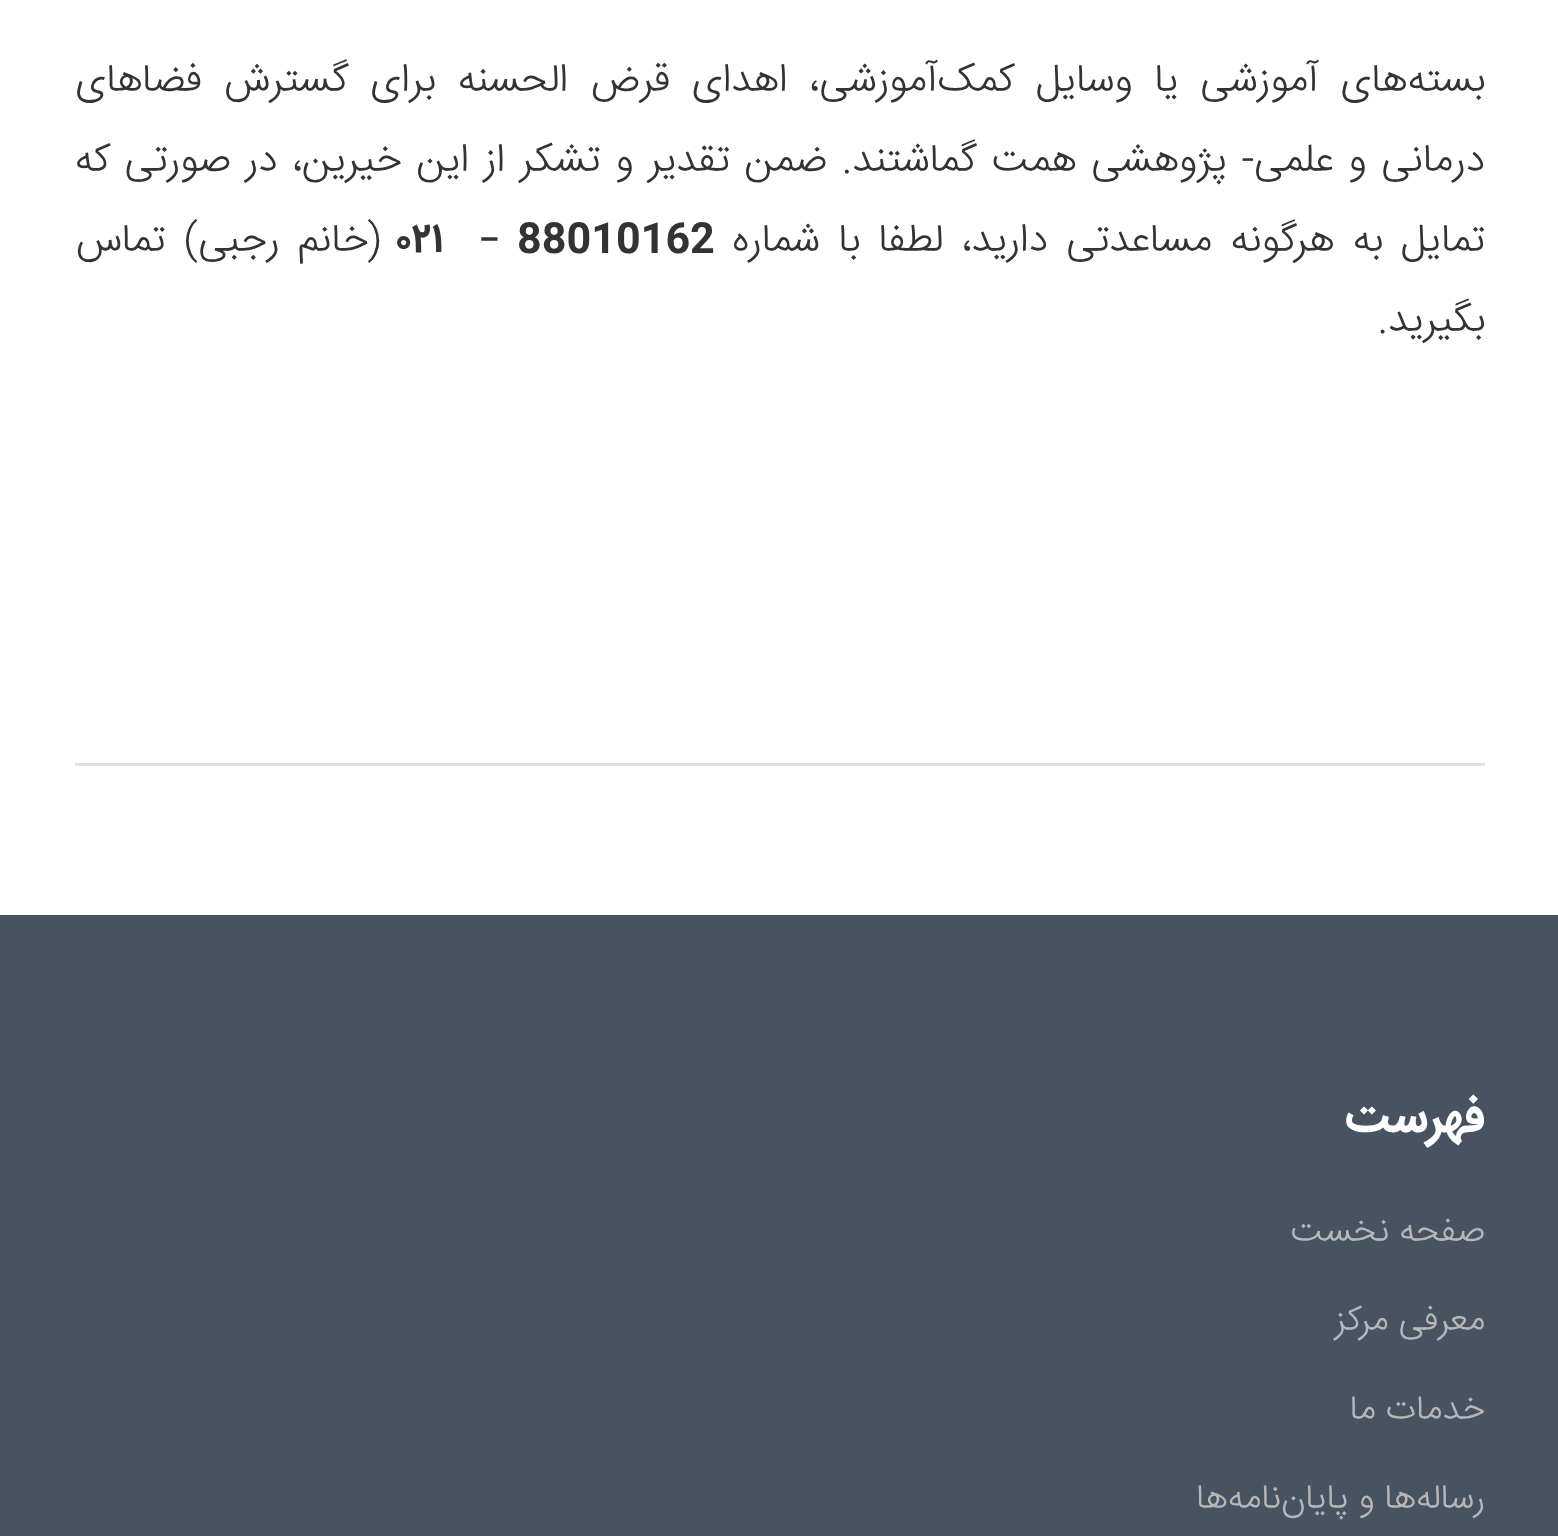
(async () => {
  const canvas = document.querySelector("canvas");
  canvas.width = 1558;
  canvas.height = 1536;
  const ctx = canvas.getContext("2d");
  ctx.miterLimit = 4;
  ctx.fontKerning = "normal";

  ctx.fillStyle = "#ffffff";
  ctx.fillRect(0, 0, 1558, 1536);
  ctx.fillStyle = "#e0e0e0";
  ctx.fillRect(75, 763, 1410, 3);
  ctx.fillStyle = "#485362";
  ctx.fillRect(0, 915, 1558, 621);
  ctx.wordSpacing = "10.5px";
  ctx.direction = "rtl";
  ctx.font = "300 40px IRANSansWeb";
  ctx.fillStyle = "#333333";
  ctx.fillText("بسته‌های آموزشی یا وسایل کمک‌آموزشی، اهدای قرض الحسنه برای گسترش فضاهای", 1485, 91);
  ctx.wordSpacing = "3.4px";
  ctx.fillText("درمانی و علمی- پژوهشی همت گماشتند. ضمن تقدیر و تشکر از این خیرین، در صورتی که", 1485, 171);
  ctx.wordSpacing = "7px";
  ctx.fillText("تمایل به هرگونه مساعدتی دارید، لطفا با شماره", 1485, 251);
  ctx.wordSpacing = "0px";
  ctx.direction = "ltr";
  ctx.font = "bold 40px IRANSansWeb";
  ctx.fillText("88010162", 517, 251);
  ctx.font = "bold 40px Lato";
  ctx.fillText("–", 478, 251);
  ctx.font = "bold 40px IRANSansWeb";
  ctx.fillText("۰۲۱", 398, 251);
  ctx.wordSpacing = "7px";
  ctx.direction = "rtl";
  ctx.font = "300 40px IRANSansWeb";
  ctx.fillText("(خانم رجبی) تماس", 380, 251);
  ctx.wordSpacing = "0px";
  ctx.fillText("بگیرید.", 1485, 331);
  ctx.font = "bold 48px IRANSansWeb";
  ctx.fillStyle = "#ffffff";
  ctx.fillText("فهرست", 1485, 1131);
  ctx.font = "300 35px IRANSansWeb";
  ctx.fillStyle = "#b7b7b7";
  for (const [text, x, y] of [
    ["صفحه نخست", 1485, 1241],
    ["معرفی مرکز", 1485, 1330],
    ["خدمات ما", 1485, 1419],
    ["رساله‌ها و پایان‌نامه‌ها", 1485, 1508],
  ]) {
    ctx.fillText(text, x, y);
  }
})();
